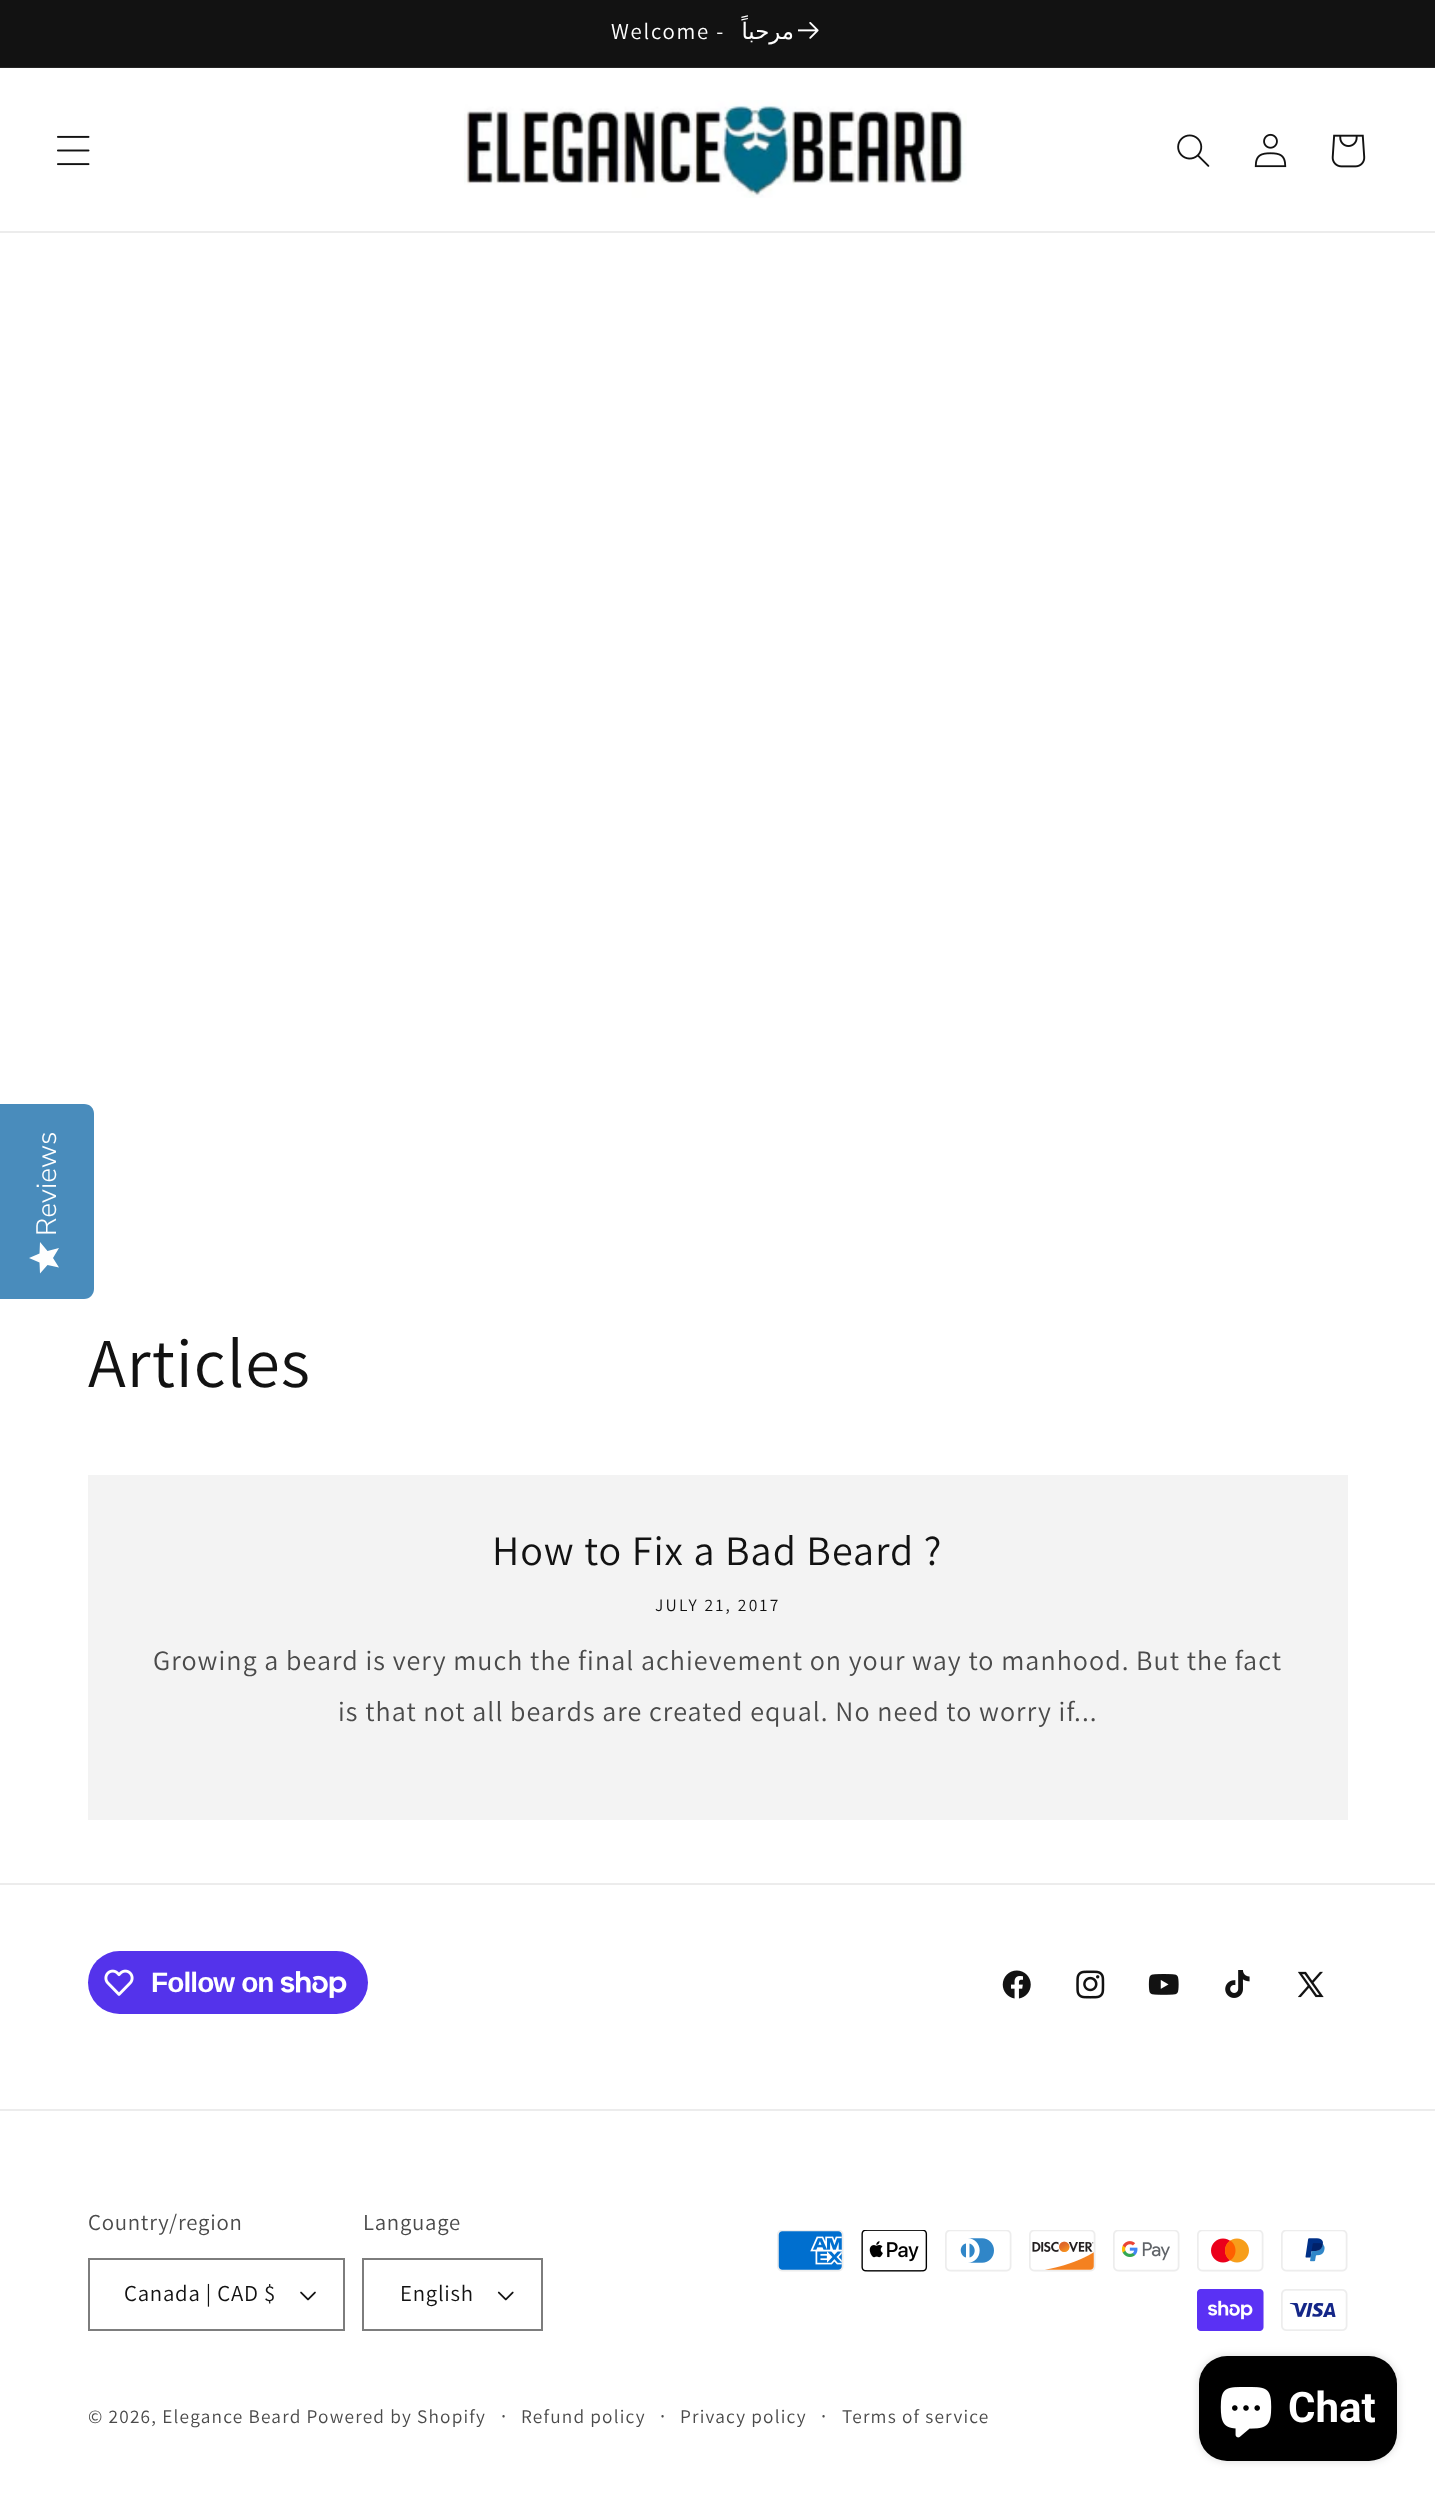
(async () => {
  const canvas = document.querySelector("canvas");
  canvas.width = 1435;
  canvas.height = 2497;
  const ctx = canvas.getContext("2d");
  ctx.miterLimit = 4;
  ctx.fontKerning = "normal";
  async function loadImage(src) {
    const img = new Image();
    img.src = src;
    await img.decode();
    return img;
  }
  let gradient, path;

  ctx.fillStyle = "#ffffff";
  ctx.fillRect(0, 0, 1435, 2497);
  ctx.fillStyle = "#121212";
  ctx.fillRect(0, 0, 1435, 67);
  ctx.fillStyle = "#252525";
  ctx.fillRect(0, 67, 1435, 1);
  ctx.drawImage(await loadImage("img/1.png"), 798, 22, 21, 17);
  ctx.fillStyle = "#ececec";
  ctx.fillRect(0, 231, 1435, 2);
  ctx.drawImage(await loadImage("img/2.png"), 57, 135, 33, 31);
  ctx.drawImage(await loadImage("img/3.png"), 464, 100, 503, 98);
  ctx.drawImage(await loadImage("img/4.png"), 1177, 134, 33, 33);
  ctx.drawImage(await loadImage("img/5.png"), 1254, 133, 33, 35);
  ctx.drawImage(await loadImage("img/6.png"), 1331, 134, 35, 34);
  ctx.fillStyle = "#498cbc";
  path = new Path2D("M0 1299V1104H84C90 1104 94 1108 94 1114V1289C94 1294 90 1299 84 1299Z");
  ctx.fill(path);
  gradient = ctx.createLinearGradient(29, 1274, 29, 1242);
  gradient.addColorStop(1, "#fefefe");
  gradient.addColorStop(1, "#eaeaea");
  ctx.fillStyle = gradient;
  path = new Path2D("M53 1258L59 1248L47.5 1251L40 1242L39.5 1253.5L29 1258L39.5 1262.5L40 1273.5L47.5 1265L59 1267.5Z");
  ctx.fill(path);
  ctx.fillStyle = "#f3f3f3";
  ctx.fillRect(88, 1475, 1260, 345);
  ctx.fillStyle = "#ececec";
  ctx.fillRect(0, 1883, 1435, 2);
  ctx.fillStyle = "#5433eb";
  ctx.beginPath();
  ctx.roundRect(88, 1951, 280, 63, 31.5);
  ctx.fill();
  ctx.drawImage(await loadImage("img/7.png"), 104, 1969, 30, 27);
  ctx.drawImage(await loadImage("img/8.png"), 280, 1971, 67, 27);
  ctx.drawImage(await loadImage("img/9.png"), 1002, 1970, 29, 29);
  ctx.drawImage(await loadImage("img/10.png"), 1076, 1970, 29, 29);
  ctx.drawImage(await loadImage("img/11.png"), 1148, 1974, 31, 21);
  ctx.drawImage(await loadImage("img/12.png"), 1225, 1970, 25, 28);
  ctx.drawImage(await loadImage("img/13.png"), 1298, 1971, 26, 27);
  ctx.fillStyle = "#ececec";
  ctx.fillRect(0, 2109, 1435, 2);
  ctx.drawImage(await loadImage("img/14.png"), 300, 2291, 16, 10);
  ctx.strokeStyle = "#7d7d7d";
  ctx.lineWidth = 2;
  ctx.strokeRect(89, 2259, 255, 71);
  ctx.drawImage(await loadImage("img/15.png"), 497, 2291, 17, 10);
  ctx.strokeRect(363, 2259, 179, 71);
  ctx.drawImage(await loadImage("img/16.png"), 777, 2230, 67, 42);
  ctx.drawImage(await loadImage("img/17.png"), 861, 2230, 67, 42);
  ctx.drawImage(await loadImage("img/18.png"), 945, 2230, 67, 42);
  ctx.drawImage(await loadImage("img/19.png"), 1029, 2230, 67, 42);
  ctx.drawImage(await loadImage("img/20.png"), 1113, 2230, 67, 42);
  ctx.drawImage(await loadImage("img/21.png"), 1197, 2230, 67, 42);
  ctx.drawImage(await loadImage("img/22.png"), 1281, 2230, 67, 42);
  ctx.drawImage(await loadImage("img/23.png"), 1197, 2289, 67, 42);
  ctx.drawImage(await loadImage("img/24.png"), 1281, 2289, 67, 42);
  ctx.fillStyle = "rgba(0, 0, 0, 0.15)";
  ctx.filter = "blur(4.5px)";
  ctx.beginPath();
  ctx.roundRect(1199, 2356, 198, 105, 28);
  ctx.fill();
  ctx.filter = "none";
  ctx.fillStyle = "#000000";
  ctx.beginPath();
  ctx.roundRect(1199, 2356, 198, 105, 28);
  ctx.fill();
  ctx.drawImage(await loadImage("img/25.png"), 1220, 2387, 52, 51);
  ctx.letterSpacing = "1.75px";
  ctx.font = "22.75px Assistant";
  ctx.fillStyle = "#ffffff";
  ctx.fillText("Welcome -", 611, 39);
  ctx.direction = "rtl";
  ctx.font = "22.75px DejaVu Sans";
  ctx.fillText("مرحباً", 794, 39);
  ctx.letterSpacing = "0px";
  ctx.direction = "ltr";
  ctx.font = "300 28px Nunito Sans";
  ctx.save();
  ctx.translate(56, 1236);
  ctx.rotate(-90 * Math.PI / 180);
  ctx.fillText("Reviews", 0, 0);
  ctx.restore();
  ctx.letterSpacing = "1.05px";
  ctx.font = "70px Assistant";
  ctx.fillStyle = "#121212";
  ctx.fillText("Articles", 88, 1387);
  ctx.font = "42px Assistant";
  ctx.fillText("How to Fix a Bad Beard ?", 492, 1565);
  ctx.letterSpacing = "2.25px";
  ctx.font = "17.5px Assistant";
  ctx.fillText("JULY 21, 2017", 655, 1611);
  ctx.letterSpacing = "1.05px";
  ctx.font = "28px Assistant";
  ctx.fillStyle = "#4a4a4a";
  ctx.fillText("Growing a beard is very much the final achievement on your way to manhood. But the fact", 153, 1670);
  ctx.fillText("is that not all beards are created equal. No need to worry if...", 338, 1721);
  ctx.letterSpacing = "-0.9px";
  ctx.font = "bold 28px Liberation Sans";
  ctx.fillStyle = "#ffffff";
  ctx.fillText("Follow on", 151, 1992);
  ctx.letterSpacing = "0.75px";
  ctx.font = "22.75px Assistant";
  ctx.fillStyle = "#4a4a4a";
  ctx.fillText("Country/region", 88, 2230);
  ctx.fillStyle = "#121212";
  ctx.fillText("Canada | CAD $", 124, 2301);
  ctx.fillStyle = "#4a4a4a";
  ctx.fillText("Language", 363, 2230);
  ctx.fillStyle = "#121212";
  ctx.fillText("English", 400, 2301);
  ctx.letterSpacing = "1.2px";
  ctx.font = "19.25px Assistant";
  ctx.fillStyle = "#4a4a4a";
  ctx.fillText("© 2026, Elegance Beard Powered by Shopify", 88, 2423);
  ctx.font = "21px Assistant";
  ctx.fillText("·", 501, 2423);
  ctx.font = "19.25px Assistant";
  ctx.fillText("Refund policy", 521, 2423);
  ctx.font = "21px Assistant";
  ctx.fillText("·", 660, 2423);
  ctx.font = "19.25px Assistant";
  ctx.fillText("Privacy policy", 680, 2423);
  ctx.font = "21px Assistant";
  ctx.fillText("·", 821, 2423);
  ctx.font = "19.25px Assistant";
  ctx.fillText("Terms of service", 842, 2423);
  ctx.letterSpacing = "0px";
  ctx.font = "bold 42px Roboto";
  ctx.fillStyle = "#ffffff";
  ctx.fillText("Chat", 1288, 2422);
})();
